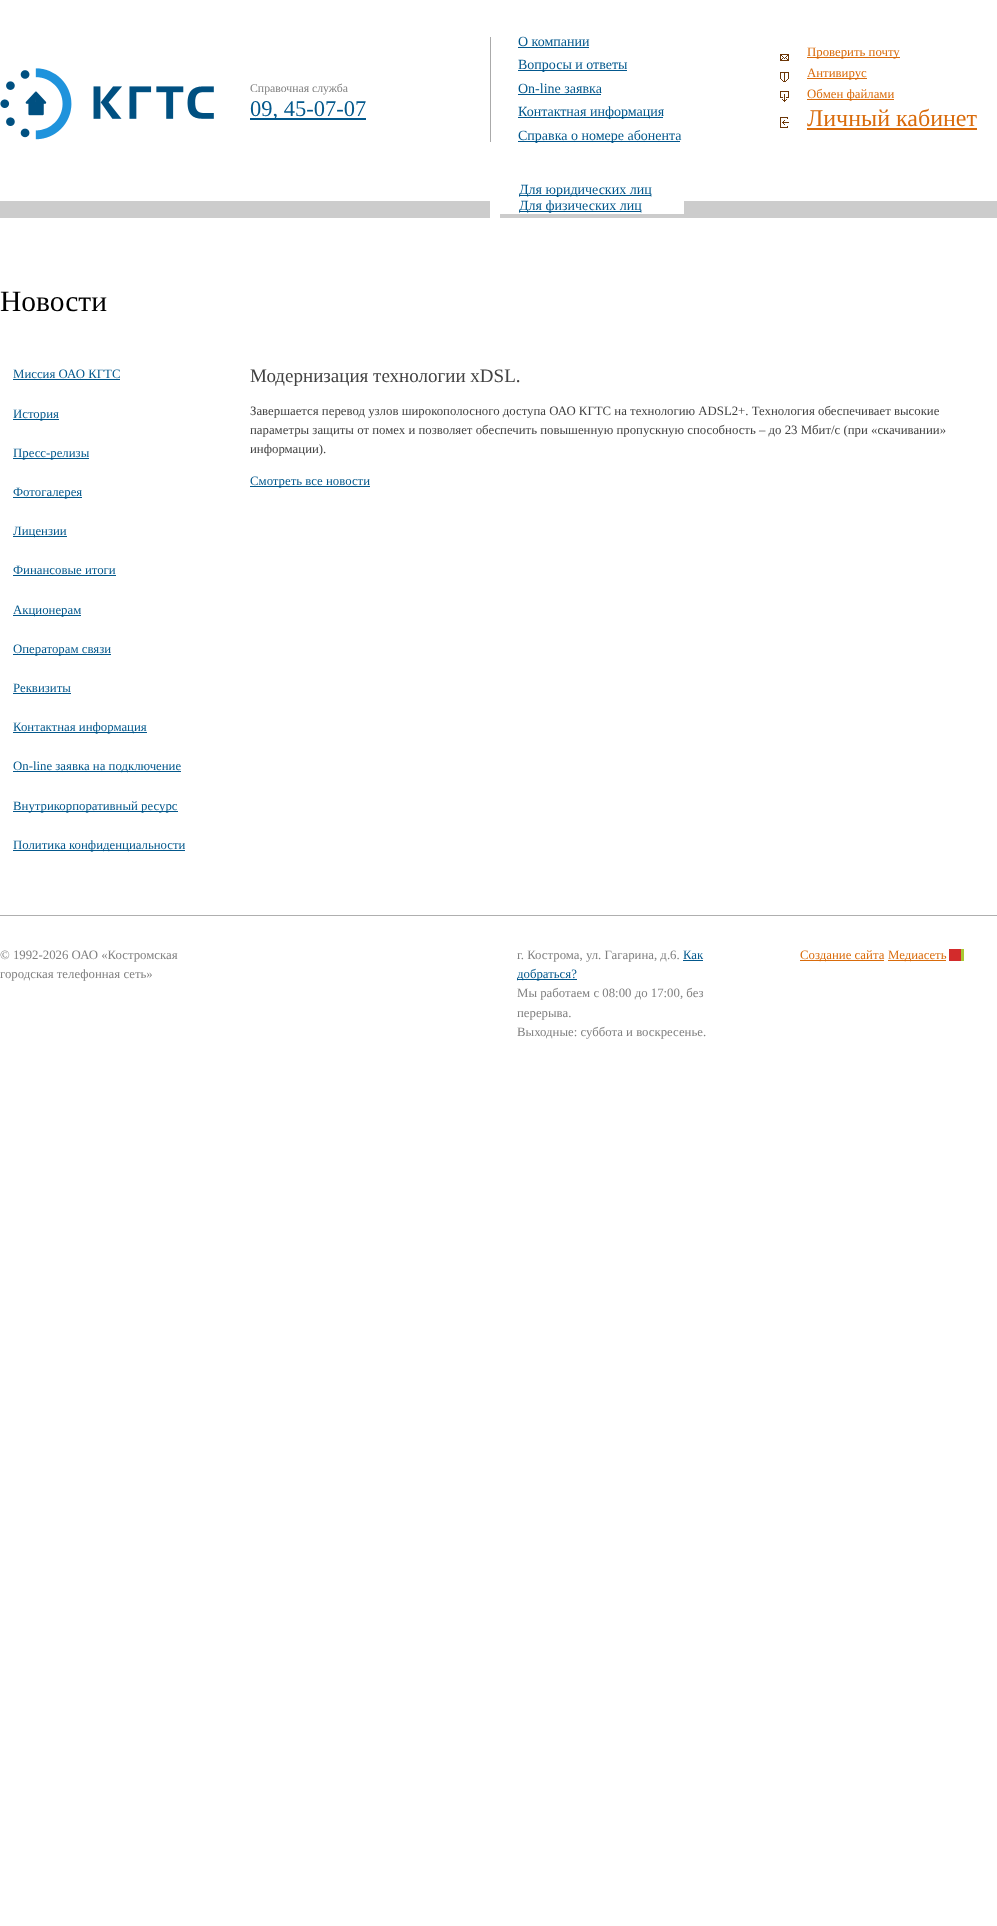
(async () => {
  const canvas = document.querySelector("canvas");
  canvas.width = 997;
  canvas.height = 1926;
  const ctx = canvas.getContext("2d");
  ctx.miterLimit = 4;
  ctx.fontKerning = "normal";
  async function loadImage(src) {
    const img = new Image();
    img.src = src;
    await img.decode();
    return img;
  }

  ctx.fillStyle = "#ffffff";
  ctx.fillRect(0, 0, 997, 1926);
  ctx.drawImage(await loadImage("img/1.png"), 0, 68, 214, 72);
  for (const [x, y, w, h, color] of [
    [250, 118, 116, 2, "#03588c"],
    [490, 30, 1, 117, "#aaaaaa"],
    [490, 30, 1, 7, "#ffffff"],
    [518, 47, 71, 1, "#03588e"],
    [518, 70, 109, 1, "#03588e"],
    [518, 94, 83, 1, "#03588e"],
    [518, 117, 145, 1, "#03588e"],
    [518, 141, 162, 1, "#03588e"],
    [490, 142, 1, 5, "#ffffff"],
  ]) {
    ctx.fillStyle = color;
    ctx.fillRect(x, y, w, h);
  }
  ctx.drawImage(await loadImage("img/2.png"), 780, 54, 9, 7);
  ctx.fillStyle = "#d96b0b";
  ctx.fillRect(807, 57, 93, 1);
  ctx.drawImage(await loadImage("img/3.png"), 780, 72, 9, 10);
  ctx.fillRect(807, 78, 60, 1);
  ctx.drawImage(await loadImage("img/4.png"), 780, 91, 9, 11);
  ctx.fillRect(807, 99, 87, 1);
  ctx.drawImage(await loadImage("img/5.png"), 780, 117, 9, 11);
  for (const [x, y, w, h, color] of [
    [807, 128, 170, 2, "#d96b0b"],
    [0, 201, 490, 17, "#cccccc"],
    [500, 201, 497, 17, "#cccccc"],
    [500, 201, 184, 13, "#ffffff"],
    [519, 195, 132, 1, "#03588c"],
    [519, 211, 122, 1, "#03588c"],
    [13, 379, 107, 1, "#03588c"],
    [13, 419, 46, 1, "#03588c"],
    [13, 458, 76, 1, "#03588c"],
    [13, 497, 69, 1, "#03588c"],
    [13, 536, 54, 1, "#03588c"],
    [13, 575, 103, 1, "#03588c"],
    [13, 615, 68, 1, "#03588c"],
    [13, 654, 98, 1, "#03588c"],
    [13, 693, 58, 1, "#03588c"],
    [13, 732, 134, 1, "#03588c"],
    [13, 771, 168, 1, "#03588c"],
    [13, 811, 165, 1, "#03588c"],
    [13, 850, 172, 1, "#03588c"],
    [250, 486, 120, 1, "#03588c"],
    [0, 915, 997, 1, "#afafaf"],
    [683, 960, 20, 1, "#03588c"],
    [517, 979, 60, 1, "#03588c"],
    [800, 960, 84, 1, "#d96b0b"],
    [888, 960, 58, 1, "#d96b0b"],
  ]) {
    ctx.fillStyle = color;
    ctx.fillRect(x, y, w, h);
  }
  ctx.drawImage(await loadImage("img/6.png"), 949, 949, 15, 12);
  ctx.font = "11.75px Liberation Serif";
  ctx.fillStyle = "#818181";
  ctx.fillText("Справочная служба", 250, 92);
  ctx.font = "22.5px Liberation Serif";
  ctx.fillStyle = "#03588c";
  ctx.fillText("09, 45-07-07", 250, 116);
  ctx.font = "14px Liberation Serif";
  for (const [text, x, y] of [
    ["О компании", 518, 46],
    ["Вопросы и ответы", 518, 69],
    ["On-line заявка", 518, 93],
    ["Контактная информация", 518, 116],
    ["Справка о номере абонента", 518, 140],
  ]) {
    ctx.fillText(text, x, y);
  }
  ctx.font = "12.8px Liberation Serif";
  ctx.fillStyle = "#d96b0b";
  for (const [text, x, y] of [
    ["Проверить почту", 807, 56],
    ["Антивирус", 807, 77],
    ["Обмен файлами", 807, 98],
  ]) {
    ctx.fillText(text, x, y);
  }
  ctx.font = "24px Liberation Serif";
  ctx.fillText("Личный кабинет", 807, 126);
  ctx.font = "14px Liberation Serif";
  ctx.fillStyle = "#03588c";
  ctx.fillText("Для юридических лиц", 519, 194);
  ctx.fillText("Для физических лиц", 519, 210);
  ctx.font = "29.5px Liberation Serif";
  ctx.fillStyle = "#000000";
  ctx.fillText("Новости", 0, 311);
  ctx.font = "12.8px Liberation Serif";
  ctx.fillStyle = "#03588c";
  for (const [text, x, y] of [
    ["Миссия ОАО КГТС", 13, 378],
    ["История", 13, 418],
    ["Пресс-релизы", 13, 457],
    ["Фотогалерея", 13, 496],
    ["Лицензии", 13, 535],
    ["Финансовые итоги", 13, 574],
    ["Акционерам", 13, 614],
    ["Операторам связи", 13, 653],
    ["Реквизиты", 13, 692],
    ["Контактная информация", 13, 731],
    ["On-line заявка на подключение", 13, 770],
    ["Внутрикорпоративный ресурс", 13, 810],
    ["Политика конфиденциальности", 13, 849],
  ]) {
    ctx.fillText(text, x, y);
  }
  ctx.font = "19px Liberation Serif";
  ctx.fillStyle = "#424242";
  ctx.fillText("Модернизация технологии xDSL.", 250, 382);
  ctx.font = "12.8px Liberation Serif";
  for (const [text, x, y] of [
    ["Завершается перевод узлов широкополосного доступа ОАО КГТС на технологию ADSL2+. Технология обеспечивает высокие", 250, 415],
    ["параметры защиты от помех и позволяет обеспечить повышенную пропускную способность – до 23 Мбит/с (при «скачивании»", 250, 434],
    ["информации).", 250, 453],
  ]) {
    ctx.fillText(text, x, y);
  }
  ctx.fillStyle = "#03588c";
  ctx.fillText("Смотреть все новости", 250, 485);
  ctx.fillStyle = "#818181";
  for (const [text, x, y] of [
    ["© 1992-2026 ОАО «Костромская", 0, 959],
    ["городская телефонная сеть»", 0, 978],
    ["г. Кострома, ул. Гагарина, д.6.", 517, 959],
  ]) {
    ctx.fillText(text, x, y);
  }
  ctx.fillStyle = "#03588c";
  ctx.fillText("Как", 683, 959);
  ctx.fillText("добраться?", 517, 978);
  ctx.fillStyle = "#818181";
  for (const [text, x, y] of [
    ["Мы работаем с 08:00 до 17:00, без", 517, 997],
    ["перерыва.", 517, 1017],
    ["Выходные: суббота и воскресенье.", 517, 1036],
  ]) {
    ctx.fillText(text, x, y);
  }
  ctx.fillStyle = "#d96b0b";
  ctx.fillText("Создание сайта", 800, 959);
  ctx.fillText("Медиаcеть", 888, 959);
})();
